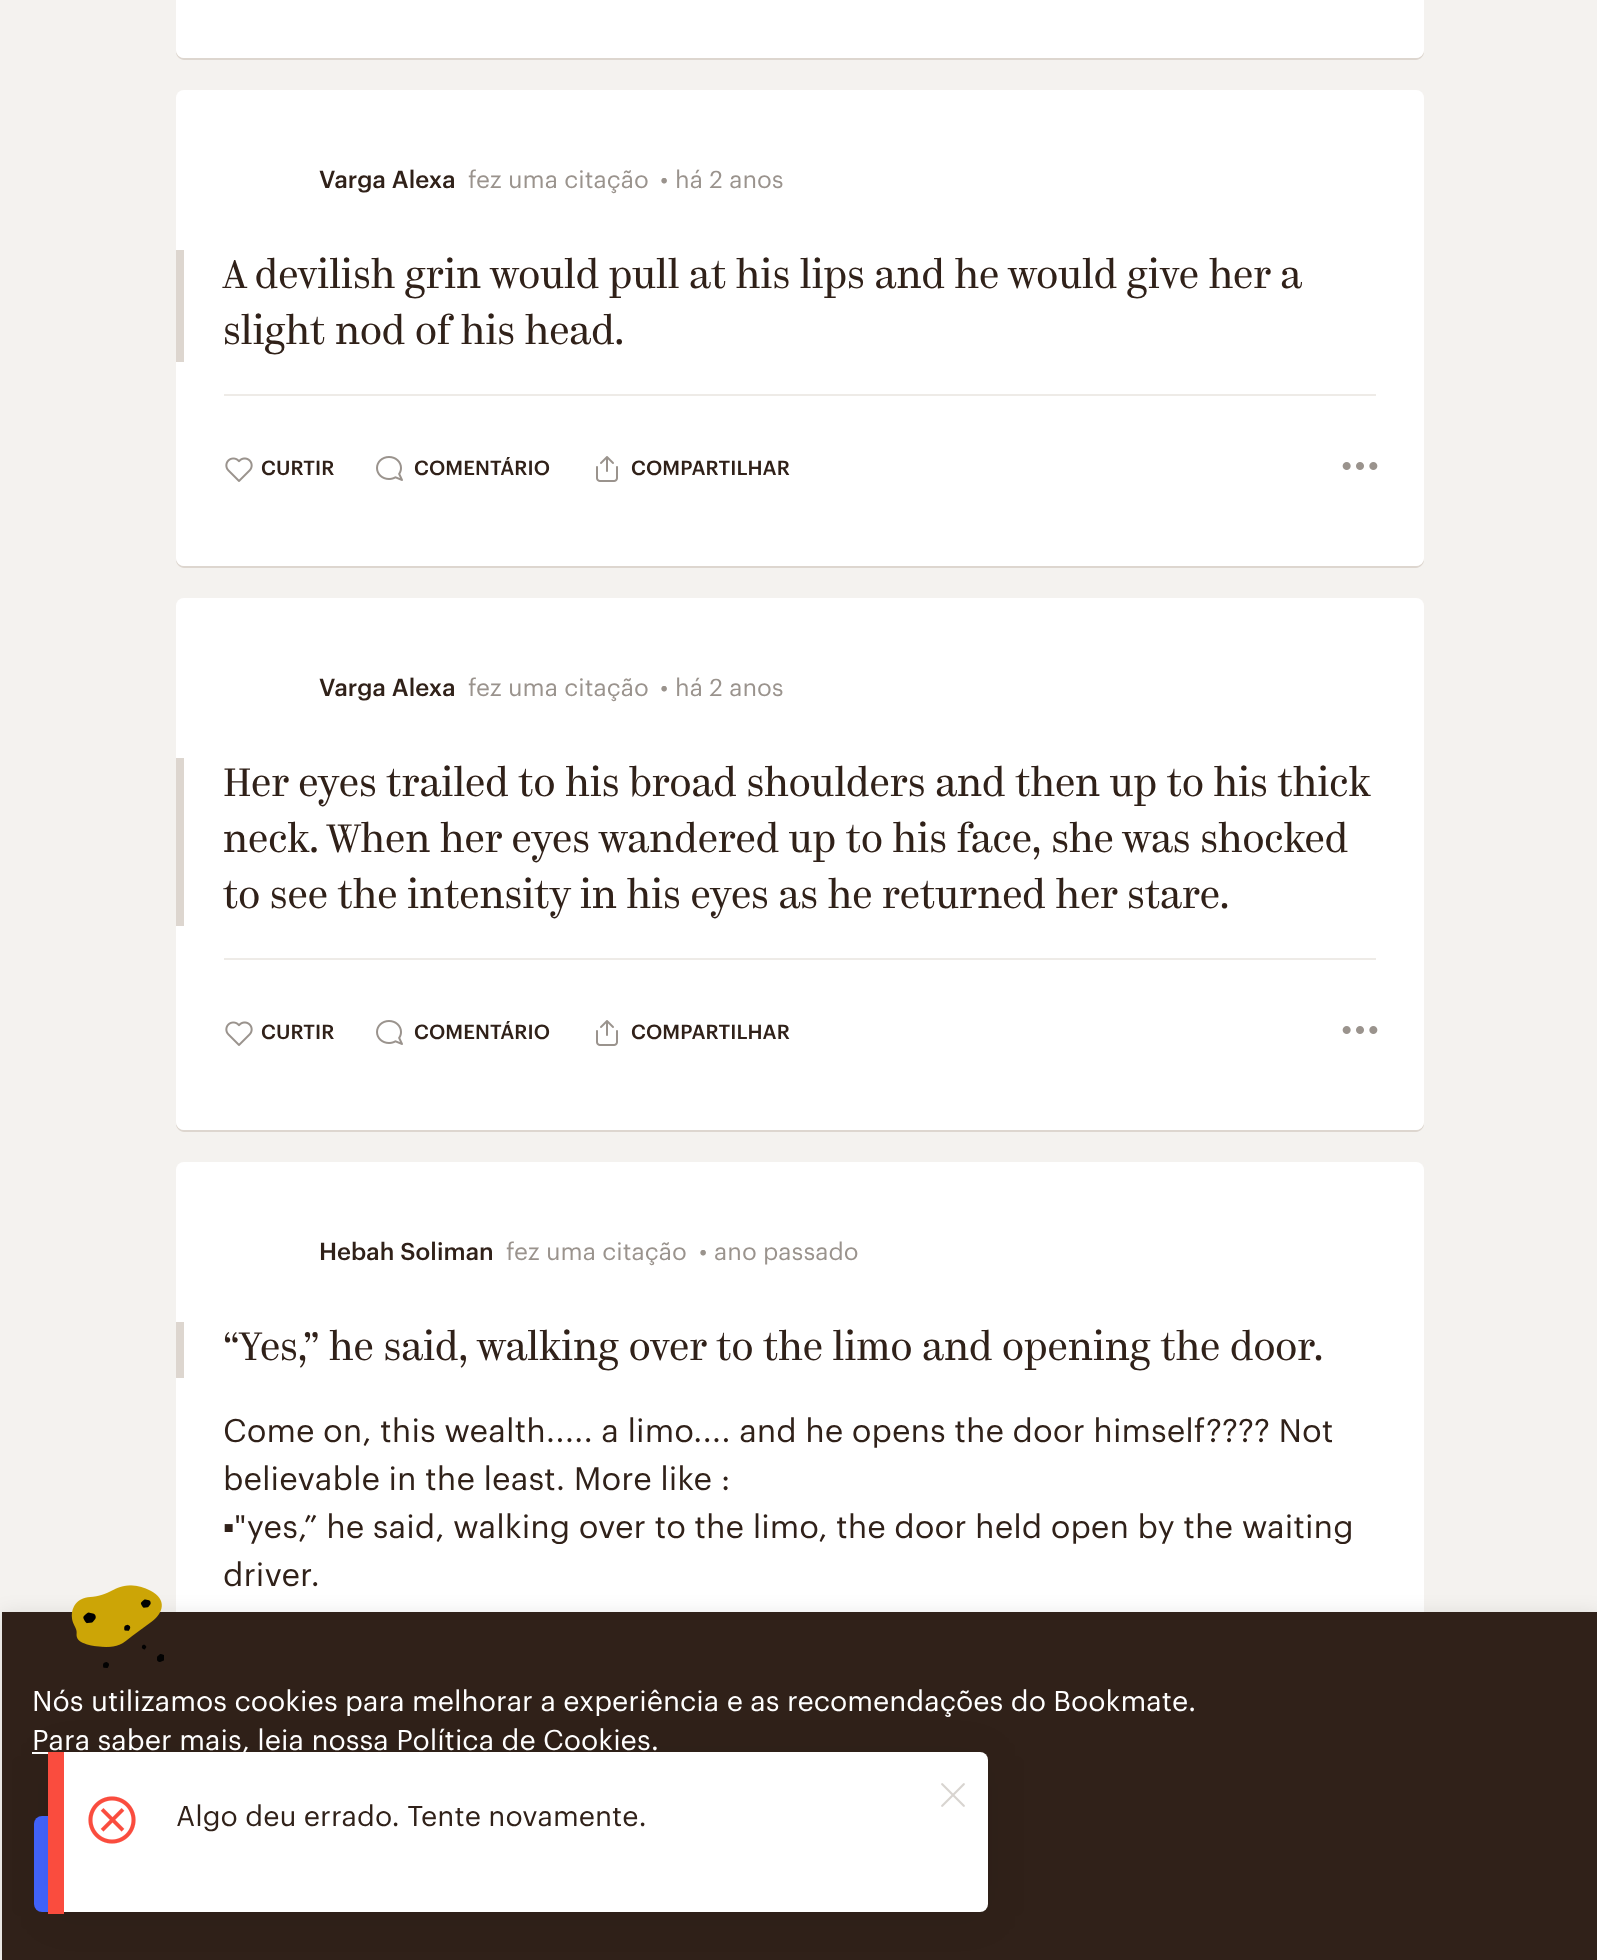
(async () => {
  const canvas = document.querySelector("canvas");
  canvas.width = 1597;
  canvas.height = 1960;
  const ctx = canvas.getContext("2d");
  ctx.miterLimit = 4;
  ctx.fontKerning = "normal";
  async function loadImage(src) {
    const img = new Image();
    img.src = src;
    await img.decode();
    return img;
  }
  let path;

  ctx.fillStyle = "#f4f2ef";
  ctx.fillRect(0, 0, 1597, 1960);
  ctx.fillStyle = "#ddd6cf";
  path = new Path2D("M176 50V52C176 56 180 60 184 60H1416C1420 60 1424 56 1424 52V50C1424 54 1420 58 1416 58H184C180 58 176 54 176 50Z");
  ctx.fill(path);
  ctx.fillStyle = "#ffffff";
  ctx.beginPath();
  ctx.roundRect(176, -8, 1248, 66, 8);
  ctx.fill();
  ctx.fillStyle = "#ddd6cf";
  path = new Path2D("M176 558V560C176 564 180 568 184 568H1416C1420 568 1424 564 1424 560V558C1424 562 1420 566 1416 566H184C180 566 176 562 176 558Z");
  ctx.fill(path);
  ctx.fillStyle = "#ffffff";
  ctx.beginPath();
  ctx.roundRect(176, 90, 1248, 476, 8);
  ctx.fill();
  ctx.fillStyle = "#ddd6cf";
  ctx.fillRect(176, 250, 8, 112);
  ctx.fillStyle = "#eeebe7";
  ctx.fillRect(224, 394, 1152, 2);
  ctx.drawImage(await loadImage("img/1.png"), 225, 457, 28, 25);
  ctx.drawImage(await loadImage("img/2.png"), 376, 456, 27, 25);
  ctx.drawImage(await loadImage("img/3.png"), 596, 456, 22, 26);
  ctx.drawImage(await loadImage("img/4.png"), 1342, 462, 36, 8);
  ctx.fillStyle = "#ddd6cf";
  path = new Path2D("M176 1122V1124C176 1128 180 1132 184 1132H1416C1420 1132 1424 1128 1424 1124V1122C1424 1126 1420 1130 1416 1130H184C180 1130 176 1126 176 1122Z");
  ctx.fill(path);
  ctx.fillStyle = "#ffffff";
  ctx.beginPath();
  ctx.roundRect(176, 598, 1248, 532, 8);
  ctx.fill();
  ctx.fillStyle = "#ddd6cf";
  ctx.fillRect(176, 758, 8, 168);
  ctx.fillStyle = "#eeebe7";
  ctx.fillRect(224, 958, 1152, 2);
  ctx.drawImage(await loadImage("img/1.png"), 225, 1021, 28, 25);
  ctx.drawImage(await loadImage("img/2.png"), 376, 1020, 27, 25);
  ctx.drawImage(await loadImage("img/3.png"), 596, 1020, 22, 26);
  ctx.drawImage(await loadImage("img/4.png"), 1342, 1026, 36, 8);
  ctx.fillStyle = "#ffffff";
  ctx.beginPath();
  ctx.roundRect(176, 1162, 1248, 672, 8);
  ctx.fill();
  ctx.fillStyle = "#ddd6cf";
  ctx.fillRect(176, 1322, 8, 56);
  ctx.fillStyle = "rgba(0, 0, 0, 0.1)";
  ctx.filter = "blur(10px)";
  ctx.beginPath();
  ctx.rect(2, 1614, 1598, 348);
  ctx.fill();
  ctx.filter = "none";
  ctx.fillStyle = "#302119";
  ctx.fillRect(2, 1612, 1595, 348);
  ctx.drawImage(await loadImage("img/5.png"), 71, 1585, 93, 83);
  ctx.fillStyle = "#ffffff";
  ctx.fillRect(32, 1752, 16, 2);
  ctx.fillStyle = "#4264fd";
  ctx.beginPath();
  ctx.roundRect(34, 1816, 422, 96, 8);
  ctx.fill();
  ctx.fillStyle = "rgba(0, 0, 0, 0.07)";
  ctx.filter = "blur(20px)";
  ctx.beginPath();
  ctx.roundRect(48, 1756, 940, 160, 8);
  ctx.fill();
  ctx.filter = "none";
  ctx.fillStyle = "#ffffff";
  ctx.beginPath();
  ctx.roundRect(48, 1752, 940, 160, 8);
  ctx.fill();
  ctx.drawImage(await loadImage("img/6.png"), 941, 1783, 24, 24);
  ctx.drawImage(await loadImage("img/7.png"), 88, 1796, 48, 48);
  ctx.font = "500 24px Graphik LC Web";
  ctx.fillStyle = "#302119";
  ctx.fillText("Varga Alexa", 319, 188);
  ctx.font = "24px Graphik LC Web";
  ctx.fillStyle = "#9a938d";
  for (const [text, x, y] of [
    ["fez uma citação", 468, 188],
    ["•", 660, 188],
    ["há 2 anos", 675, 188],
  ]) {
    ctx.fillText(text, x, y);
  }
  ctx.font = "40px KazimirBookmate";
  ctx.fillStyle = "#302119";
  ctx.fillText("A devilish grin would pull at his lips and he would give her a", 223, 288);
  ctx.fillText("slight nod of his head.", 223, 344);
  ctx.font = "500 20px Graphik LC Web";
  for (const [text, x, y] of [
    ["CURTIR", 261, 475],
    ["COMENTÁRIO", 414, 475],
    ["COMPARTILHAR", 631, 475],
  ]) {
    ctx.fillText(text, x, y);
  }
  ctx.font = "500 24px Graphik LC Web";
  ctx.fillText("Varga Alexa", 319, 696);
  ctx.font = "24px Graphik LC Web";
  ctx.fillStyle = "#9a938d";
  for (const [text, x, y] of [
    ["fez uma citação", 468, 696],
    ["•", 660, 696],
    ["há 2 anos", 675, 696],
  ]) {
    ctx.fillText(text, x, y);
  }
  ctx.font = "40px KazimirBookmate";
  ctx.fillStyle = "#302119";
  for (const [text, x, y] of [
    ["Her eyes trailed to his broad shoulders and then up to his thick", 223, 796],
    ["neck. When her eyes wandered up to his face, she was shocked", 223, 852],
    ["to see the intensity in his eyes as he returned her stare.", 223, 908],
  ]) {
    ctx.fillText(text, x, y);
  }
  ctx.font = "500 20px Graphik LC Web";
  for (const [text, x, y] of [
    ["CURTIR", 261, 1039],
    ["COMENTÁRIO", 414, 1039],
    ["COMPARTILHAR", 631, 1039],
  ]) {
    ctx.fillText(text, x, y);
  }
  ctx.font = "500 24px Graphik LC Web";
  ctx.fillText("Hebah Soliman", 319, 1260);
  ctx.font = "24px Graphik LC Web";
  ctx.fillStyle = "#9a938d";
  for (const [text, x, y] of [
    ["fez uma citação", 506, 1260],
    ["•", 699, 1260],
    ["ano passado", 714, 1260],
  ]) {
    ctx.fillText(text, x, y);
  }
  ctx.font = "40px KazimirBookmate";
  ctx.fillStyle = "#302119";
  ctx.fillText("“Yes,” he said, walking over to the limo and opening the door.", 223, 1360);
  ctx.font = "32px Graphik LC Web";
  ctx.fillText("Come on, this wealth..... a limo.... and he opens the door himself???? Not", 223, 1442);
  ctx.fillText("believable in the least. More like :", 223, 1490);
  ctx.font = "32px Liberation Sans";
  ctx.fillText("▪︎", 223, 1538);
  ctx.font = "32px Graphik LC Web";
  ctx.fillText("\"yes,” he said, walking over to the limo, the door held open by the waiting", 234, 1538);
  ctx.fillText("driver.", 223, 1586);
  ctx.font = "28px Graphik LC Web";
  ctx.fillStyle = "#ffffff";
  ctx.fillText("Nós utilizamos cookies para melhorar a experiência e as recomendações do Bookmate.", 32, 1711);
  ctx.fillText("Para saber mais, leia nossa Política de Cookies.", 32, 1750);
  ctx.fillStyle = "#fa4c3e";
  ctx.fillRect(48, 1752, 16, 162);
  ctx.fillStyle = "#302119";
  ctx.fillText("Algo deu errado. Tente novamente.", 176, 1826);
})();
